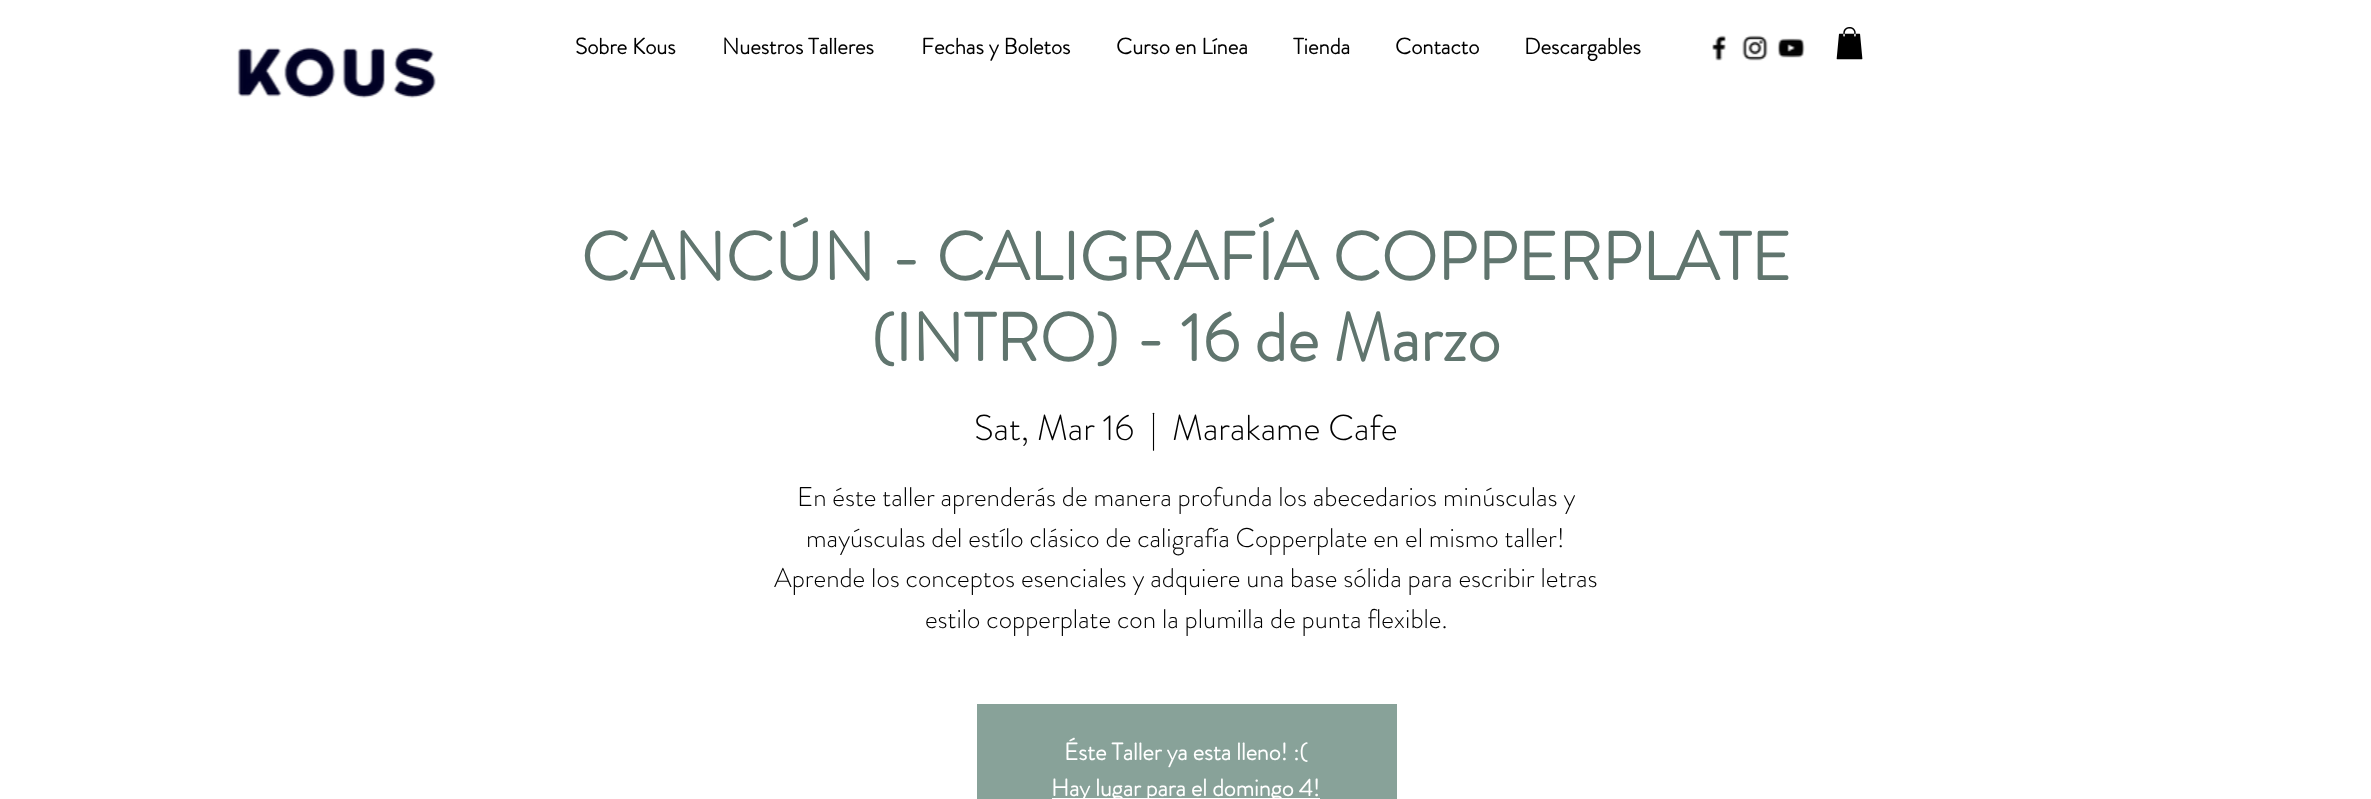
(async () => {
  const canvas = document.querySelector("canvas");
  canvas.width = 2371;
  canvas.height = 799;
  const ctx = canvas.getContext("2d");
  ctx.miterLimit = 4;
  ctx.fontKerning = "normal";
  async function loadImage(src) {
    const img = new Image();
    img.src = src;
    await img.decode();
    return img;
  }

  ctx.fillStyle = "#ffffff";
  ctx.fillRect(0, 0, 2371, 799);
  ctx.drawImage(await loadImage("img/1.png"), 237, 47, 199, 51);
  ctx.drawImage(await loadImage("img/2.png"), 1712, 35, 14, 26);
  ctx.drawImage(await loadImage("img/3.png"), 1742, 35, 26, 26);
  ctx.drawImage(await loadImage("img/4.png"), 1777, 38, 28, 20);
  ctx.drawImage(await loadImage("img/5.png"), 1836, 27, 27, 33);
  ctx.fillStyle = "#88a299";
  ctx.fillRect(977, 704, 420, 95);
  ctx.fillStyle = "#ffffff";
  ctx.fillRect(1052, 798, 268, 1);
  ctx.font = "bold 22.5px 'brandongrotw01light'";
  ctx.fillStyle = "#000000";
  for (const [text, x, y] of [
    ["Sobre Kous", 575, 54],
    ["Nuestros Talleres", 722, 54],
    ["Fechas y Boletos", 921, 54],
    ["Curso en Línea", 1116, 54],
    ["Tienda", 1293, 54],
    ["Contacto", 1395, 54],
    ["Descargables", 1524, 54],
  ]) {
    ctx.fillText(text, x, y);
  }
  ctx.font = "bold 67.5px 'brandongrotw01light'";
  ctx.fillStyle = "#60756e";
  ctx.fillText("CANCÚN - CALIGRAFÍA COPPERPLATE", 581, 280);
  ctx.fillText("(INTRO) - 16 de Marzo", 871, 361);
  ctx.font = "300 36px 'brandongrotw01light'";
  ctx.fillStyle = "#000000";
  for (const [text, x, y] of [
    ["Sat, Mar 16", 974, 440],
    ["|", 1150, 440],
    ["Marakame Cafe", 1172, 440],
  ]) {
    ctx.fillText(text, x, y);
  }
  ctx.font = "300 27px 'brandongrotw01light'";
  for (const [text, x, y] of [
    ["En éste taller aprenderás de manera profunda los abecedarios minúsculas y", 797, 506],
    ["mayúsculas del estílo clásico de caligrafía Copperplate en el mismo taller!", 806, 547],
    ["Aprende los conceptos esenciales y adquiere una base sólida para escribir letras", 774, 587],
    ["estilo copperplate con la plumilla de punta flexible.", 925, 628],
  ]) {
    ctx.fillText(text, x, y);
  }
  ctx.font = "bold 24px 'brandongrotw01light'";
  ctx.fillStyle = "#ffffff";
  ctx.fillText("Éste Taller ya esta lleno! :(", 1064, 760);
  ctx.fillText("Hay lugar para el domingo 4!", 1051, 796);
})();
